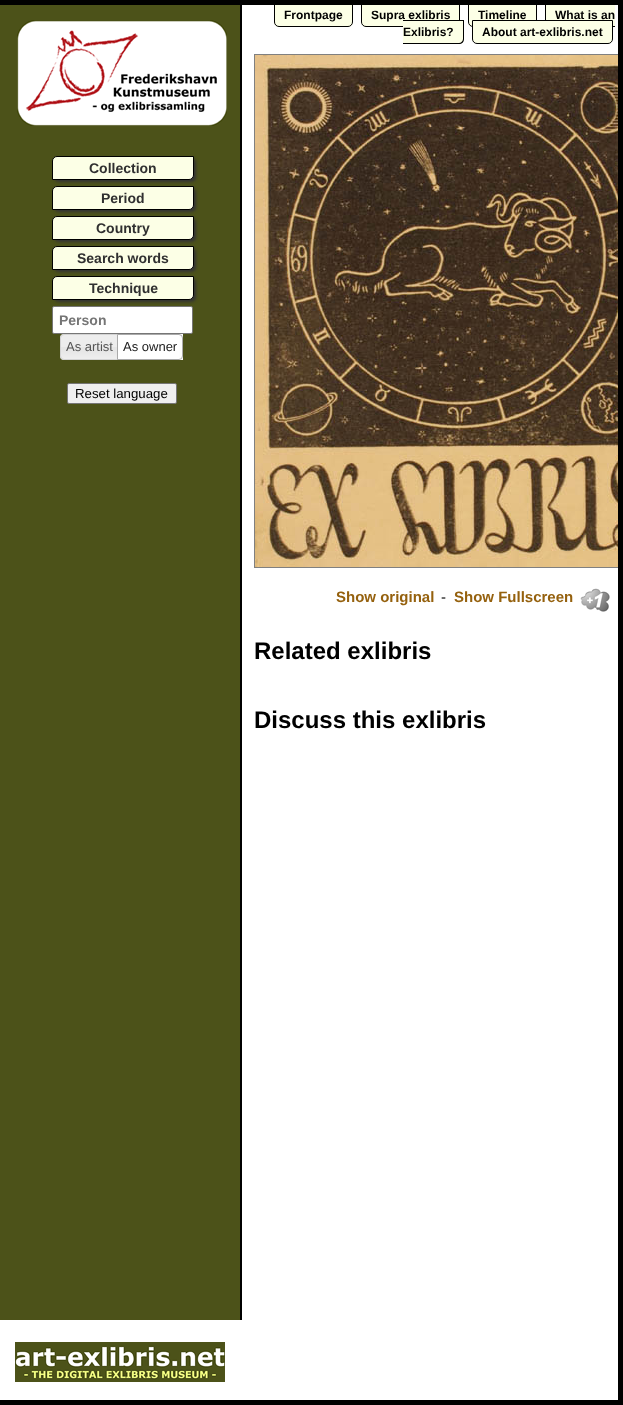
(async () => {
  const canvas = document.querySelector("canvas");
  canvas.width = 623;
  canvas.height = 1405;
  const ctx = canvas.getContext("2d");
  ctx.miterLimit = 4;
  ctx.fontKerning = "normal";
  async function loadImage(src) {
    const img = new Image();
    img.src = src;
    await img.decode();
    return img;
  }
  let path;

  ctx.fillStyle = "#ffffff";
  ctx.fillRect(0, 0, 623, 1405);
  for (const [x, y, w, h, color] of [
    [0, 0, 623, 5, "#000000"],
    [0, 5, 240, 1315, "#4c5219"],
    [240, 5, 2, 1315, "#000000"],
  ]) {
    ctx.fillStyle = color;
    ctx.fillRect(x, y, w, h);
  }
  ctx.drawImage(await loadImage("img/1.png"), 17, 20, 210, 106);
  ctx.fillStyle = "#333333";
  ctx.filter = "blur(1.5px)";
  ctx.beginPath();
  ctx.roundRect(54, 158, 142, 24, 5);
  ctx.fill();
  ctx.filter = "none";
  ctx.fillStyle = "#fcffe6";
  ctx.beginPath();
  ctx.roundRect(52.5, 156.5, 141, 23, [4.5, 0, 4.5, 0]);
  ctx.fill();
  ctx.strokeStyle = "#000000";
  ctx.stroke();
  ctx.fillStyle = "#333333";
  ctx.filter = "blur(1.5px)";
  ctx.beginPath();
  ctx.roundRect(54, 188, 142, 24, 5);
  ctx.fill();
  ctx.filter = "none";
  ctx.fillStyle = "#fcffe6";
  ctx.beginPath();
  ctx.roundRect(52.5, 186.5, 141, 23, [4.5, 0, 4.5, 0]);
  ctx.fill();
  ctx.stroke();
  ctx.fillStyle = "#333333";
  ctx.filter = "blur(1.5px)";
  ctx.beginPath();
  ctx.roundRect(54, 218, 142, 24, 5);
  ctx.fill();
  ctx.filter = "none";
  ctx.fillStyle = "#fcffe6";
  ctx.beginPath();
  ctx.roundRect(52.5, 216.5, 141, 23, [4.5, 0, 4.5, 0]);
  ctx.fill();
  ctx.stroke();
  ctx.fillStyle = "#333333";
  ctx.filter = "blur(1.5px)";
  ctx.beginPath();
  ctx.roundRect(54, 248, 142, 24, 5);
  ctx.fill();
  ctx.filter = "none";
  ctx.fillStyle = "#fcffe6";
  ctx.beginPath();
  ctx.roundRect(52.5, 246.5, 141, 23, [4.5, 0, 4.5, 0]);
  ctx.fill();
  ctx.stroke();
  ctx.fillStyle = "#333333";
  ctx.filter = "blur(1.5px)";
  ctx.beginPath();
  ctx.roundRect(54, 278, 142, 24, 5);
  ctx.fill();
  ctx.filter = "none";
  ctx.fillStyle = "#fcffe6";
  ctx.beginPath();
  ctx.roundRect(52.5, 276.5, 141, 23, [4.5, 0, 4.5, 0]);
  ctx.fill();
  ctx.stroke();
  ctx.fillStyle = "#ffffff";
  ctx.beginPath();
  ctx.roundRect(52.5, 306.5, 140, 27, 1.5);
  ctx.fill();
  ctx.strokeStyle = "#767676";
  ctx.stroke();
  ctx.drawImage(await loadImage("img/2.png"), 60, 334, 57, 26);
  ctx.beginPath();
  ctx.roundRect(60.5, 334.5, 58, 25, [3.5, 0, 0, 3.5]);
  ctx.strokeStyle = "#d3d3d3";
  ctx.stroke();
  ctx.fillRect(118, 335, 61, 24);
  ctx.fillStyle = "#fefefe";
  ctx.fillRect(179, 334, 4, 26);
  ctx.beginPath();
  ctx.roundRect(117.5, 334.5, 65, 25, [0, 3.5, 3.5, 0]);
  ctx.strokeStyle = "#aaaaaa";
  ctx.stroke();
  ctx.fillStyle = "#efefef";
  ctx.beginPath();
  ctx.roundRect(67.5, 383.5, 109, 20, 1.5);
  ctx.fill();
  ctx.strokeStyle = "#767676";
  ctx.stroke();
  ctx.drawImage(await loadImage("img/3.png"), 15, 1342, 210, 40);
  ctx.fillStyle = "#fcffe6";
  ctx.beginPath();
  ctx.roundRect(274, 5, 79, 22, [0, 0, 5, 5]);
  ctx.fill();
  ctx.save();
  ctx.beginPath();
  ctx.rect(242, 5, 378, 1289);
  ctx.clip();
  ctx.beginPath();
  ctx.roundRect(274.5, 3.5, 78, 23, [0, 0, 4.5, 4.5]);
  ctx.strokeStyle = "#000000";
  ctx.stroke();
  ctx.restore();
  ctx.beginPath();
  ctx.roundRect(361, 5, 99, 22, [0, 0, 5, 5]);
  ctx.fill();
  ctx.save();
  ctx.beginPath();
  ctx.rect(242, 5, 378, 1289);
  ctx.clip();
  ctx.beginPath();
  ctx.roundRect(361.5, 3.5, 98, 23, [0, 0, 4.5, 4.5]);
  ctx.strokeStyle = "#000000";
  ctx.stroke();
  ctx.restore();
  ctx.beginPath();
  ctx.roundRect(468, 5, 69, 22, [0, 0, 5, 5]);
  ctx.fill();
  ctx.save();
  ctx.beginPath();
  ctx.rect(242, 5, 378, 1289);
  ctx.clip();
  ctx.beginPath();
  ctx.roundRect(468.5, 3.5, 68, 23, [0, 0, 4.5, 4.5]);
  ctx.strokeStyle = "#000000";
  ctx.stroke();
  ctx.restore();
  ctx.fillRect(546, 5, 69, 21);
  ctx.save();
  ctx.beginPath();
  ctx.rect(242, 5, 378, 1289);
  ctx.clip();
  ctx.fillStyle = "#000000";
  path = new Path2D("M545 3H615V27H550C547 27 545 25 545 22ZM546 4H615V26H550C548 26 546 24 546 22Z");
  ctx.fill(path, "evenodd");
  ctx.restore();
  ctx.beginPath();
  ctx.roundRect(472.5, 20.5, 140, 23, [0, 0, 4.5, 4.5]);
  ctx.fill();
  ctx.strokeStyle = "#000000";
  ctx.stroke();
  ctx.strokeStyle = "#808080";
  ctx.strokeRect(254.5, 54.5, 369, 513);
  ctx.drawImage(await loadImage("img/4.png"), 255, 55, 363, 512);
  ctx.drawImage(await loadImage("img/5.png"), 580, 588, 30, 24);
  ctx.fillStyle = "#000000";
  ctx.fillRect(0, 1400, 623, 5);
  ctx.fillRect(618, 0, 5, 1405);
  ctx.font = "bold 14px Liberation Sans";
  ctx.fillStyle = "#303030";
  for (const [text, x, y] of [
    ["Collection", 89, 173],
    ["Period", 101, 203],
    ["Country", 96, 233],
    ["Search words", 77, 263],
    ["Technique", 89, 293],
  ]) {
    ctx.fillText(text, x, y);
  }
  ctx.fillStyle = "#757575";
  ctx.fillText("Person", 59, 325);
  ctx.font = "13px Liberation Sans";
  ctx.fillStyle = "#555555";
  ctx.fillText("As artist", 66, 351);
  ctx.fillStyle = "#212121";
  ctx.fillText("As owner", 123, 351);
  ctx.font = "13.25px Liberation Sans";
  ctx.fillStyle = "#000000";
  ctx.fillText("Reset language", 75, 398);
  ctx.font = "bold 12px Liberation Sans";
  for (const [text, x, y] of [
    ["Frontpage", 284, 19],
    ["Supra exlibris", 371, 19],
    ["Timeline", 478, 19],
    ["What is an", 555, 19],
  ]) {
    ctx.fillText(text, x, y);
  }
  ctx.fillStyle = "#fcffe6";
  ctx.beginPath();
  ctx.roundRect(403, 20, 61, 24, [0, 0, 5, 0]);
  ctx.fill();
  ctx.fillStyle = "#000000";
  path = new Path2D("M403 20H464V39C464 42 462 44 459 44H403ZM403 21H463V39C463 41 461 43 459 43H403Z");
  ctx.fill(path, "evenodd");
  ctx.fillText("Exlibris?", 403, 36);
  ctx.fillText("About art-exlibris.net", 482, 36);
  ctx.font = "bold 15px Liberation Sans";
  ctx.fillStyle = "#95610e";
  ctx.fillText("Show original", 336, 602);
  ctx.font = "15px Liberation Sans";
  ctx.fillStyle = "#000000";
  ctx.fillText("-", 441, 602);
  ctx.font = "bold 15px Liberation Sans";
  ctx.fillStyle = "#95610e";
  ctx.fillText("Show Fullscreen", 454, 602);
  ctx.font = "bold 24px Liberation Sans";
  ctx.fillStyle = "#000000";
  ctx.fillText("Related exlibris", 254, 659);
  ctx.fillText("Discuss this exlibris", 254, 728);
})();
